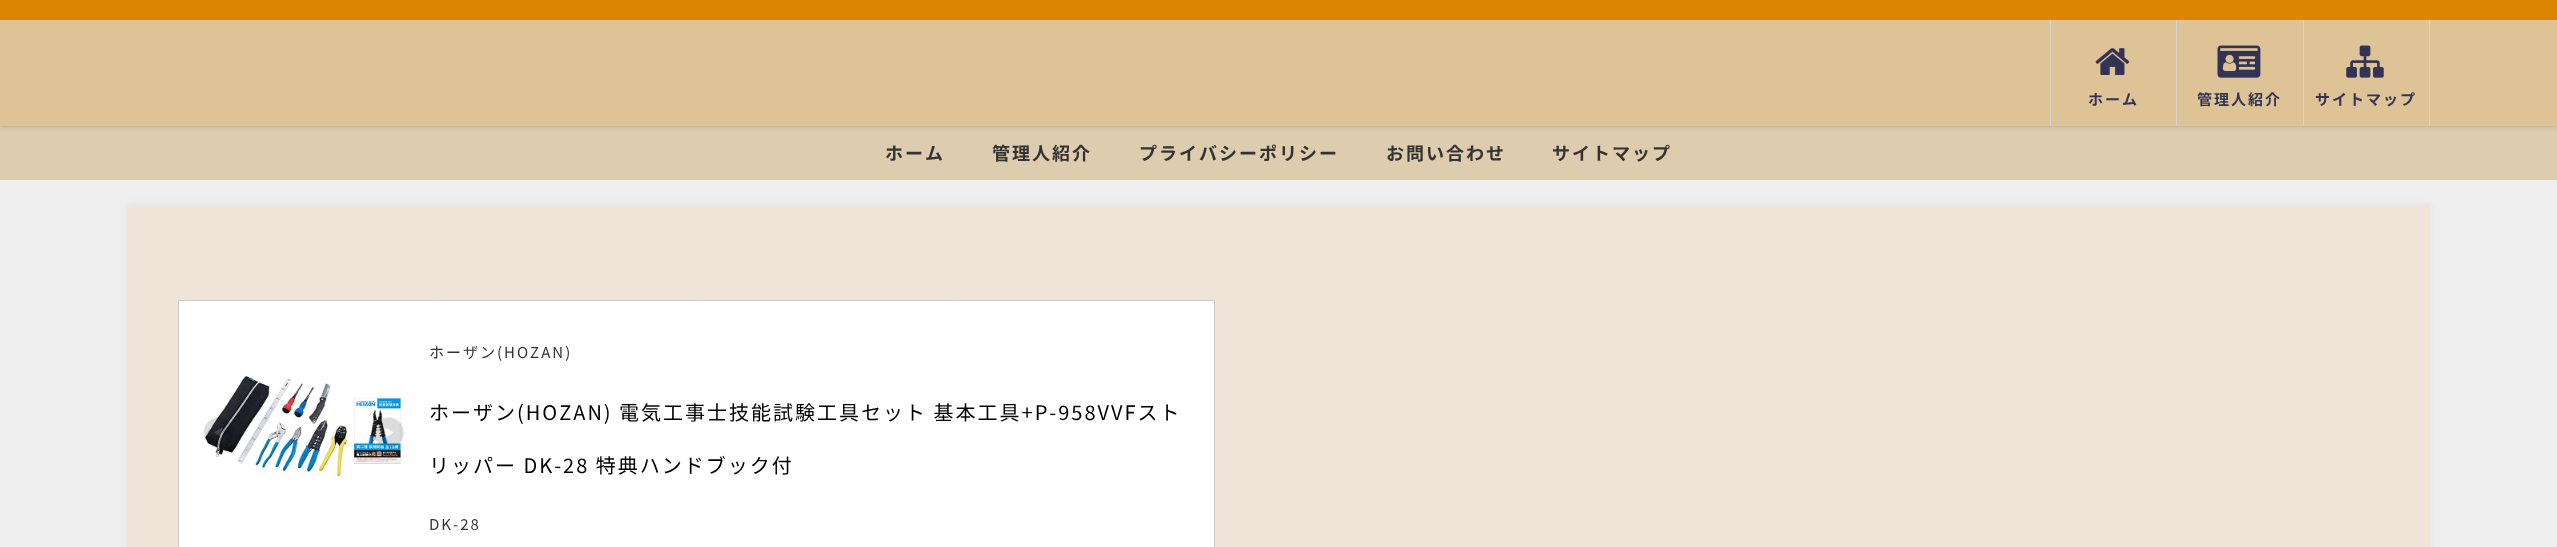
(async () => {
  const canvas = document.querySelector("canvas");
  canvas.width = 2557;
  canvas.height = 547;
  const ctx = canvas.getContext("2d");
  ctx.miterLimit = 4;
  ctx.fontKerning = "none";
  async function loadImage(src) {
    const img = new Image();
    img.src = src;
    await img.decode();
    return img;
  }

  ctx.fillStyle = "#efefef";
  ctx.fillRect(0, 0, 2557, 547);
  ctx.fillStyle = "#ddccad";
  ctx.fillRect(0, 126, 2557, 54);
  ctx.fillStyle = "rgba(0, 0, 0, 0.2)";
  ctx.filter = "blur(2.5px)";
  ctx.beginPath();
  ctx.rect(0, 0, 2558, 126);
  ctx.fill();
  ctx.filter = "none";
  for (const [x, y, w, h, color] of [
    [0, 20, 2557, 106, "#ddc396"],
    [0, 0, 2557, 20, "#dd8500"],
    [2050, 20, 1, 106, "#d4d4d4"],
  ]) {
    ctx.fillStyle = color;
    ctx.fillRect(x, y, w, h);
  }
  ctx.drawImage(await loadImage("img/1.png"), 2095, 48, 35, 27);
  ctx.fillRect(2176, 20, 1, 106);
  ctx.drawImage(await loadImage("img/2.png"), 2217, 45, 44, 33);
  ctx.fillRect(2429, 20, 1, 106);
  ctx.fillRect(2303, 20, 1, 106);
  ctx.drawImage(await loadImage("img/3.png"), 2346, 45, 38, 33);
  ctx.fillStyle = "rgba(150, 150, 150, 0.2)";
  ctx.filter = "blur(3px)";
  ctx.beginPath();
  ctx.rect(128, 205, 2302, 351);
  ctx.fill();
  ctx.filter = "none";
  ctx.fillStyle = "#efe4d7";
  ctx.fillRect(128, 205, 2302, 342);
  ctx.fillStyle = "#ffffff";
  ctx.beginPath();
  ctx.rect(178.5, 300.5, 1036, 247);
  ctx.fill();
  ctx.strokeStyle = "#cccccc";
  ctx.stroke();
  ctx.drawImage(await loadImage("img/4.png"), 205, 374, 197, 103);
  ctx.drawImage(await loadImage("img/5.png"), 203, 417, 30, 31);
  ctx.drawImage(await loadImage("img/6.png"), 374, 417, 30, 31);
  ctx.letterSpacing = "2px";
  ctx.font = "bold 15px Noto Sans JP";
  ctx.fillStyle = "#333355";
  for (const [text, x, y] of [
    ["ホーム", 2088, 105],
    ["管理人紹介", 2197, 105],
    ["サイトマップ", 2315, 105],
  ]) {
    ctx.fillText(text, x, y);
  }
  ctx.font = "bold 18px Noto Sans JP";
  ctx.fillStyle = "#333333";
  for (const [text, x, y] of [
    ["ホーム", 885, 160],
    ["管理人紹介", 992, 160],
    ["プライバシーポリシー", 1139, 160],
    ["お問い合わせ", 1386, 160],
    ["サイトマップ", 1552, 160],
  ]) {
    ctx.fillText(text, x, y);
  }
  ctx.font = "15px Noto Sans JP";
  ctx.fillText("ホーザン(HOZAN)", 429, 358);
  ctx.font = "20px Noto Sans JP";
  ctx.fillStyle = "#000000";
  ctx.fillText("ホーザン(HOZAN) 電気工事士技能試験工具セット 基本工具+P-958VVFスト", 429, 420);
  ctx.fillText("リッパー DK-28 特典ハンドブック付", 429, 473);
  ctx.font = "15px Noto Sans JP";
  ctx.fillStyle = "#333333";
  ctx.fillText("DK-28", 429, 530);
})();
